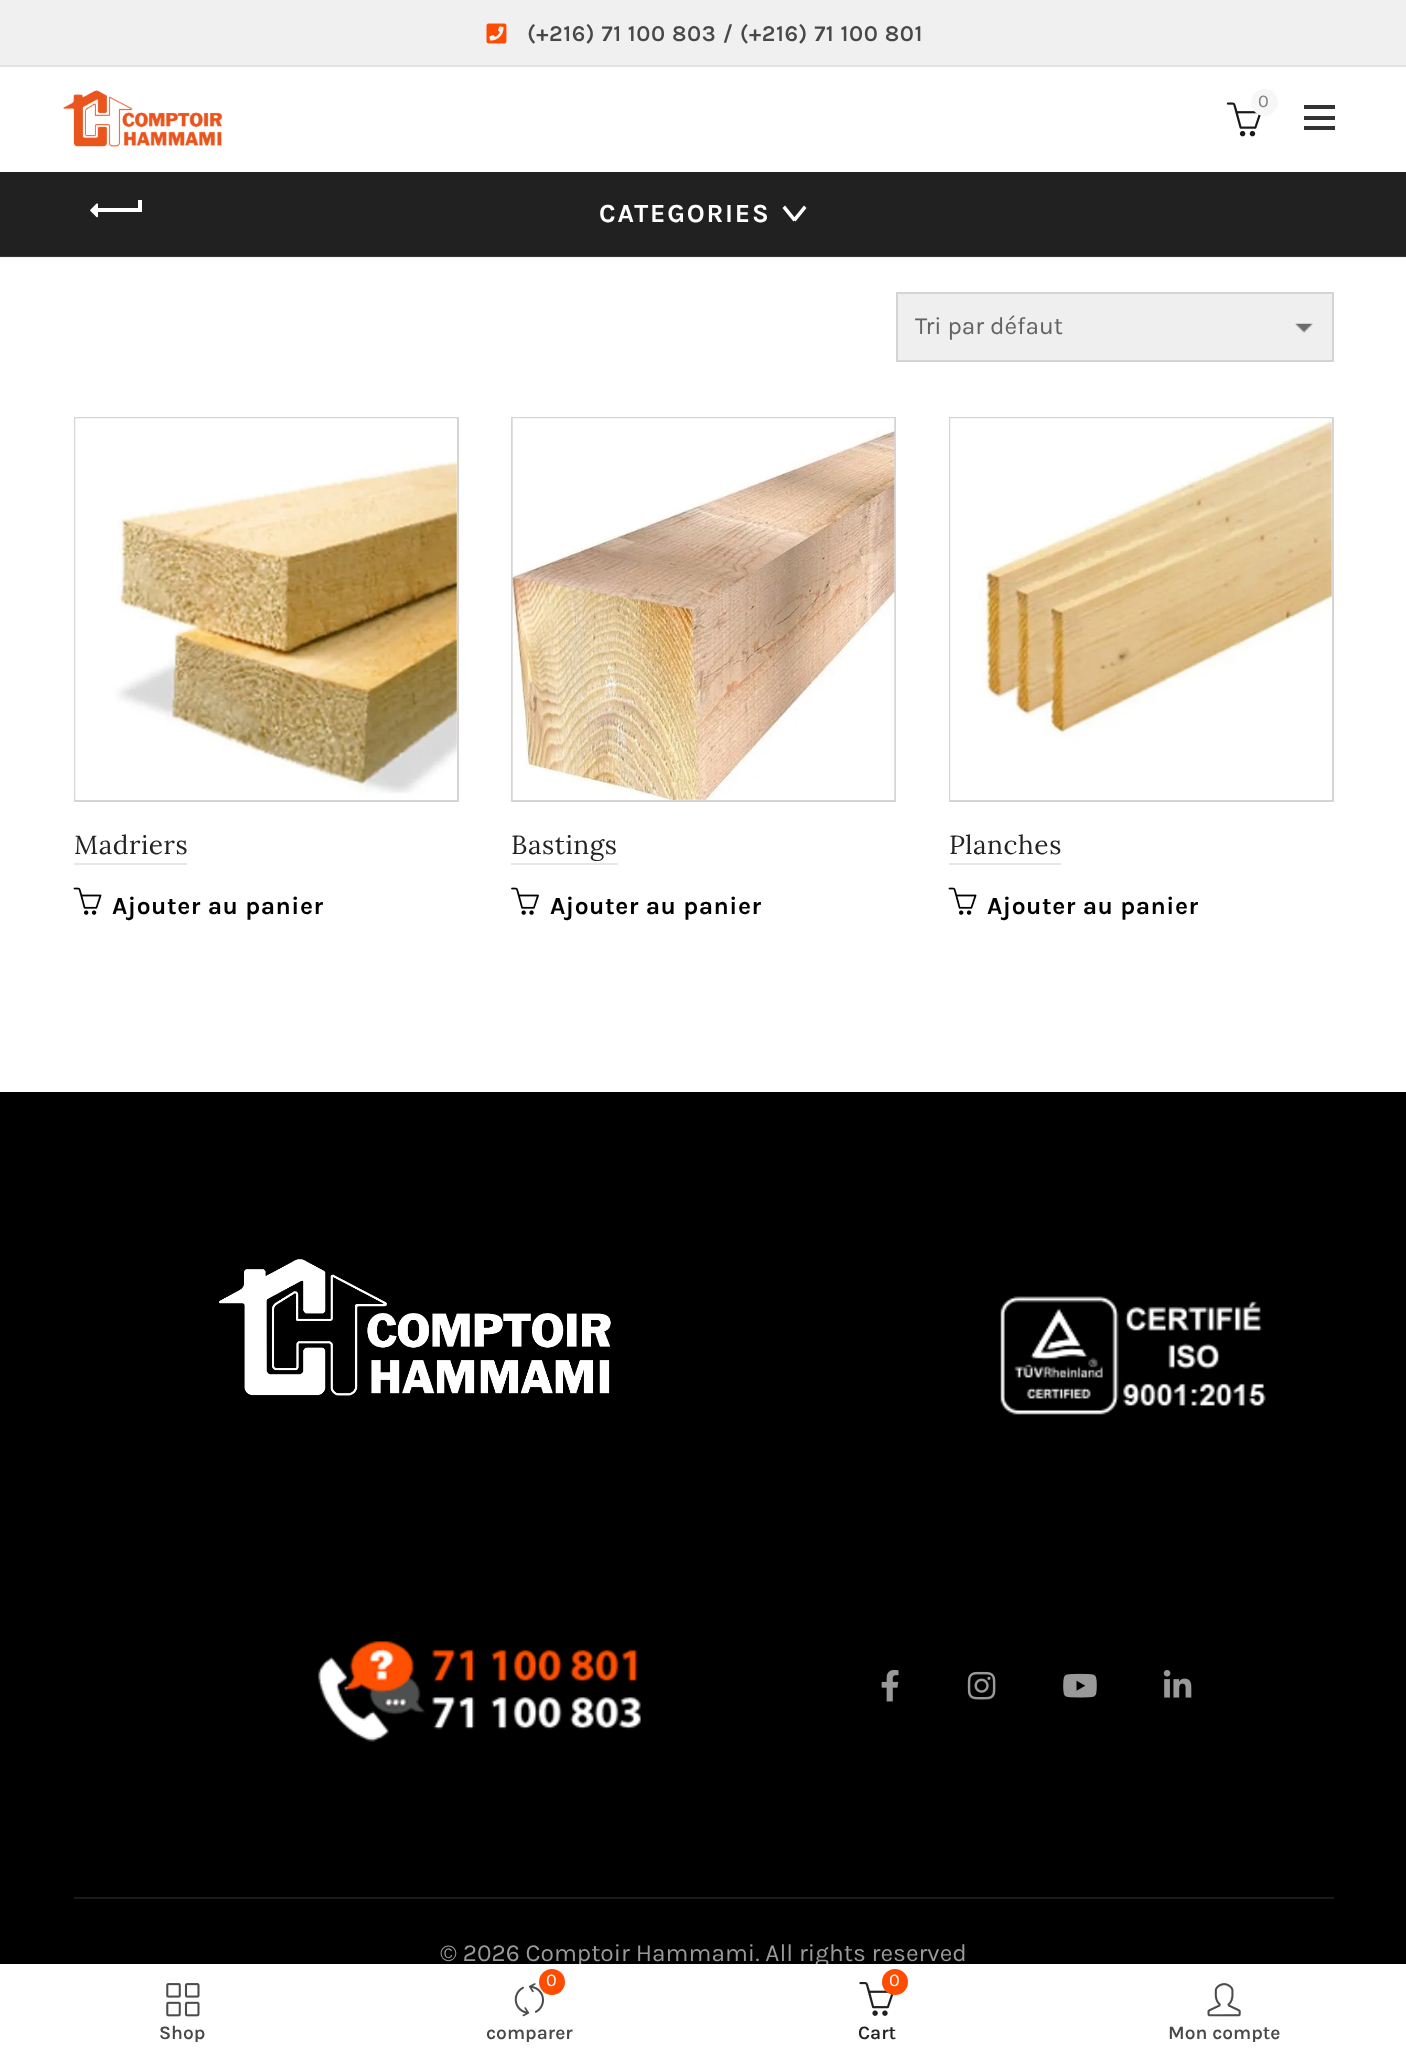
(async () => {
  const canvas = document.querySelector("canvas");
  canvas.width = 1406;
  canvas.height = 2059;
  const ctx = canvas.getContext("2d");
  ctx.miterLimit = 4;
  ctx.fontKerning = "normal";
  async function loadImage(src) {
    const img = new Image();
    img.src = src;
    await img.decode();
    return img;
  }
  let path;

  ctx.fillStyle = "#ffffff";
  ctx.fillRect(0, 0, 1406, 2059);
  for (const [x, y, w, h, color] of [
    [0, 257, 1406, 1, "#f2f2f2"],
    [0, 0, 1406, 65, "#f0f0f0"],
    [0, 65, 1406, 2, "#e4e4e4"],
  ]) {
    ctx.fillStyle = color;
    ctx.fillRect(x, y, w, h);
  }
  ctx.drawImage(await loadImage("img/1.png"), 486, 23, 21, 21);
  ctx.drawImage(await loadImage("img/2.png"), 63, 90, 160, 57);
  ctx.drawImage(await loadImage("img/3.png"), 1226, 102, 35, 35);
  ctx.fillStyle = "#f7f7f7";
  ctx.beginPath();
  ctx.arc(1264.5, 102.5, 13.5, 0, Math.PI * 2);
  ctx.fill();
  for (const [x, y, w, h, color] of [
    [1304, 116, 31, 4, "#333333"],
    [1304, 105, 31, 4, "#333333"],
    [1304, 126, 31, 4, "#333333"],
    [0, 172, 1406, 84, "#212121"],
    [0, 256, 1406, 1, "#353535"],
    [96, 208, 44, 4, "#ffffff"],
  ]) {
    ctx.fillStyle = color;
    ctx.fillRect(x, y, w, h);
  }
  ctx.drawImage(await loadImage("img/4.png"), 90, 203, 8, 15);
  ctx.fillRect(138, 200, 4, 12);
  path = new Path2D("M793 219L804 205.5L806.5 208L795.5 221.5Z");
  ctx.fill(path);
  path = new Path2D("M785 205.5L796 219L793.5 221.5L782.5 208Z");
  ctx.fill(path);
  ctx.fillStyle = "#efefef";
  ctx.fillRect(898, 294, 434, 66);
  ctx.drawImage(await loadImage("img/5.png"), 1295, 323, 18, 10);
  ctx.strokeStyle = "#d4d4d4";
  ctx.lineWidth = 2;
  ctx.strokeRect(897, 293, 436, 68);
  ctx.strokeStyle = "#d9d4d4";
  ctx.strokeRect(75, 418, 383, 383);
  ctx.drawImage(await loadImage("img/6.png"), 75, 418, 382, 382);
  ctx.fillStyle = "#e6e6e6";
  ctx.fillRect(74, 863, 113, 2);
  ctx.drawImage(await loadImage("img/7.png"), 73, 887, 29, 28);
  ctx.strokeRect(512, 418, 383, 383);
  ctx.drawImage(await loadImage("img/8.png"), 512, 418, 383, 382);
  ctx.fillRect(511, 863, 107, 2);
  ctx.drawImage(await loadImage("img/9.png"), 511, 887, 28, 28);
  ctx.strokeRect(950, 418, 383, 383);
  ctx.drawImage(await loadImage("img/10.png"), 950, 418, 382, 382);
  ctx.fillRect(949, 863, 112, 2);
  ctx.drawImage(await loadImage("img/7.png"), 948, 887, 29, 28);
  ctx.fillStyle = "#000000";
  ctx.fillRect(0, 1092, 1406, 872);
  ctx.drawImage(await loadImage("img/11.png"), 219, 1259, 392, 137);
  ctx.drawImage(await loadImage("img/12.png"), 1000, 1296, 266, 119);
  ctx.drawImage(await loadImage("img/13.png"), 318, 1641, 323, 101);
  ctx.drawImage(await loadImage("img/14.png"), 881, 1669, 18, 33);
  ctx.drawImage(await loadImage("img/15.png"), 967, 1671, 29, 29);
  ctx.drawImage(await loadImage("img/16.png"), 1063, 1673, 34, 25);
  ctx.drawImage(await loadImage("img/17.png"), 1163, 1670, 29, 28);
  ctx.fillStyle = "#1a1a1a";
  ctx.fillRect(74, 1897, 1260, 2);
  ctx.fillStyle = "rgba(0, 0, 0, 0.12)";
  ctx.filter = "blur(8px)";
  ctx.beginPath();
  ctx.rect(0, 1964, 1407, 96);
  ctx.fill();
  ctx.filter = "none";
  ctx.letterSpacing = "0.55px";
  ctx.font = "600 22.75px Karla";
  ctx.fillStyle = "#484848";
  ctx.fillText("(+216) 71 100 803 / (+216) 71 100 801", 527, 41);
  ctx.letterSpacing = "0px";
  ctx.font = "18px Karla";
  ctx.fillStyle = "#7e7e7e";
  ctx.fillText("0", 1258, 107);
  ctx.letterSpacing = "1.75px";
  ctx.font = "bold 26.25px Karla";
  ctx.fillStyle = "#ffffff";
  ctx.fillText("CATEGORIES", 599, 222);
  ctx.letterSpacing = "0px";
  ctx.font = "24.5px Karla";
  ctx.fillStyle = "#636363";
  ctx.fillText("Tri par défaut", 915, 334);
  ctx.letterSpacing = "0.55px";
  ctx.font = "26.25px Lora";
  ctx.fillStyle = "#252222";
  ctx.fillText("Madriers", 74, 854);
  ctx.font = "bold 24.5px Karla";
  ctx.fillStyle = "#000000";
  ctx.fillText("Ajouter au panier", 112, 914);
  ctx.font = "26.25px Lora";
  ctx.fillStyle = "#252222";
  ctx.fillText("Bastings", 511, 854);
  ctx.font = "bold 24.5px Karla";
  ctx.fillStyle = "#000000";
  ctx.fillText("Ajouter au panier", 550, 914);
  ctx.font = "26.25px Lora";
  ctx.fillStyle = "#252222";
  ctx.fillText("Planches", 949, 854);
  ctx.font = "bold 24.5px Karla";
  ctx.fillStyle = "#000000";
  ctx.fillText("Ajouter au panier", 987, 914);
  ctx.letterSpacing = "0px";
  ctx.font = "24.5px Karla";
  ctx.fillStyle = "#999999";
  ctx.fillText("© 2026 Comptoir Hammami. All rights reserved", 440, 1961);
  ctx.fillStyle = "#ffffff";
  ctx.fillRect(0, 1964, 1406, 95);
  ctx.drawImage(await loadImage("img/18.png"), 166, 1983, 34, 34);
  ctx.save();
  ctx.beginPath();
  ctx.rect(26, 2023, 314, 19);
  ctx.clip();
  ctx.font = "600 19.25px Karla";
  ctx.fillStyle = "#484848";
  ctx.fillText("Shop", 159, 2039);
  ctx.restore();
  ctx.drawImage(await loadImage("img/19.png"), 514, 1983, 30, 34);
  ctx.fillStyle = "#ff4c00";
  ctx.beginPath();
  ctx.arc(552, 1982, 13, 0, Math.PI * 2);
  ctx.fill();
  ctx.font = "18px Karla";
  ctx.fillStyle = "#ffffff";
  ctx.fillText("0", 546, 1986);
  ctx.save();
  ctx.beginPath();
  ctx.rect(375, 2023, 311, 19);
  ctx.clip();
  ctx.font = "600 19.25px Karla";
  ctx.fillStyle = "#484848";
  ctx.fillText("comparer", 486, 2039);
  ctx.restore();
  ctx.drawImage(await loadImage("img/20.png"), 859, 1982, 35, 34);
  ctx.fillStyle = "#ff4c00";
  ctx.beginPath();
  ctx.arc(895, 1982, 13, 0, Math.PI * 2);
  ctx.fill();
  ctx.fillStyle = "#ffffff";
  ctx.fillText("0", 889, 1986);
  ctx.font = "600 19.25px Karla";
  ctx.fillStyle = "#252222";
  ctx.fillText("Cart", 858, 2039);
  ctx.drawImage(await loadImage("img/21.png"), 1207, 1983, 34, 34);
  ctx.save();
  ctx.beginPath();
  ctx.rect(1069, 2023, 312, 19);
  ctx.clip();
  ctx.fillStyle = "#484848";
  ctx.fillText("Mon compte", 1168, 2039);
  ctx.restore();
})();
